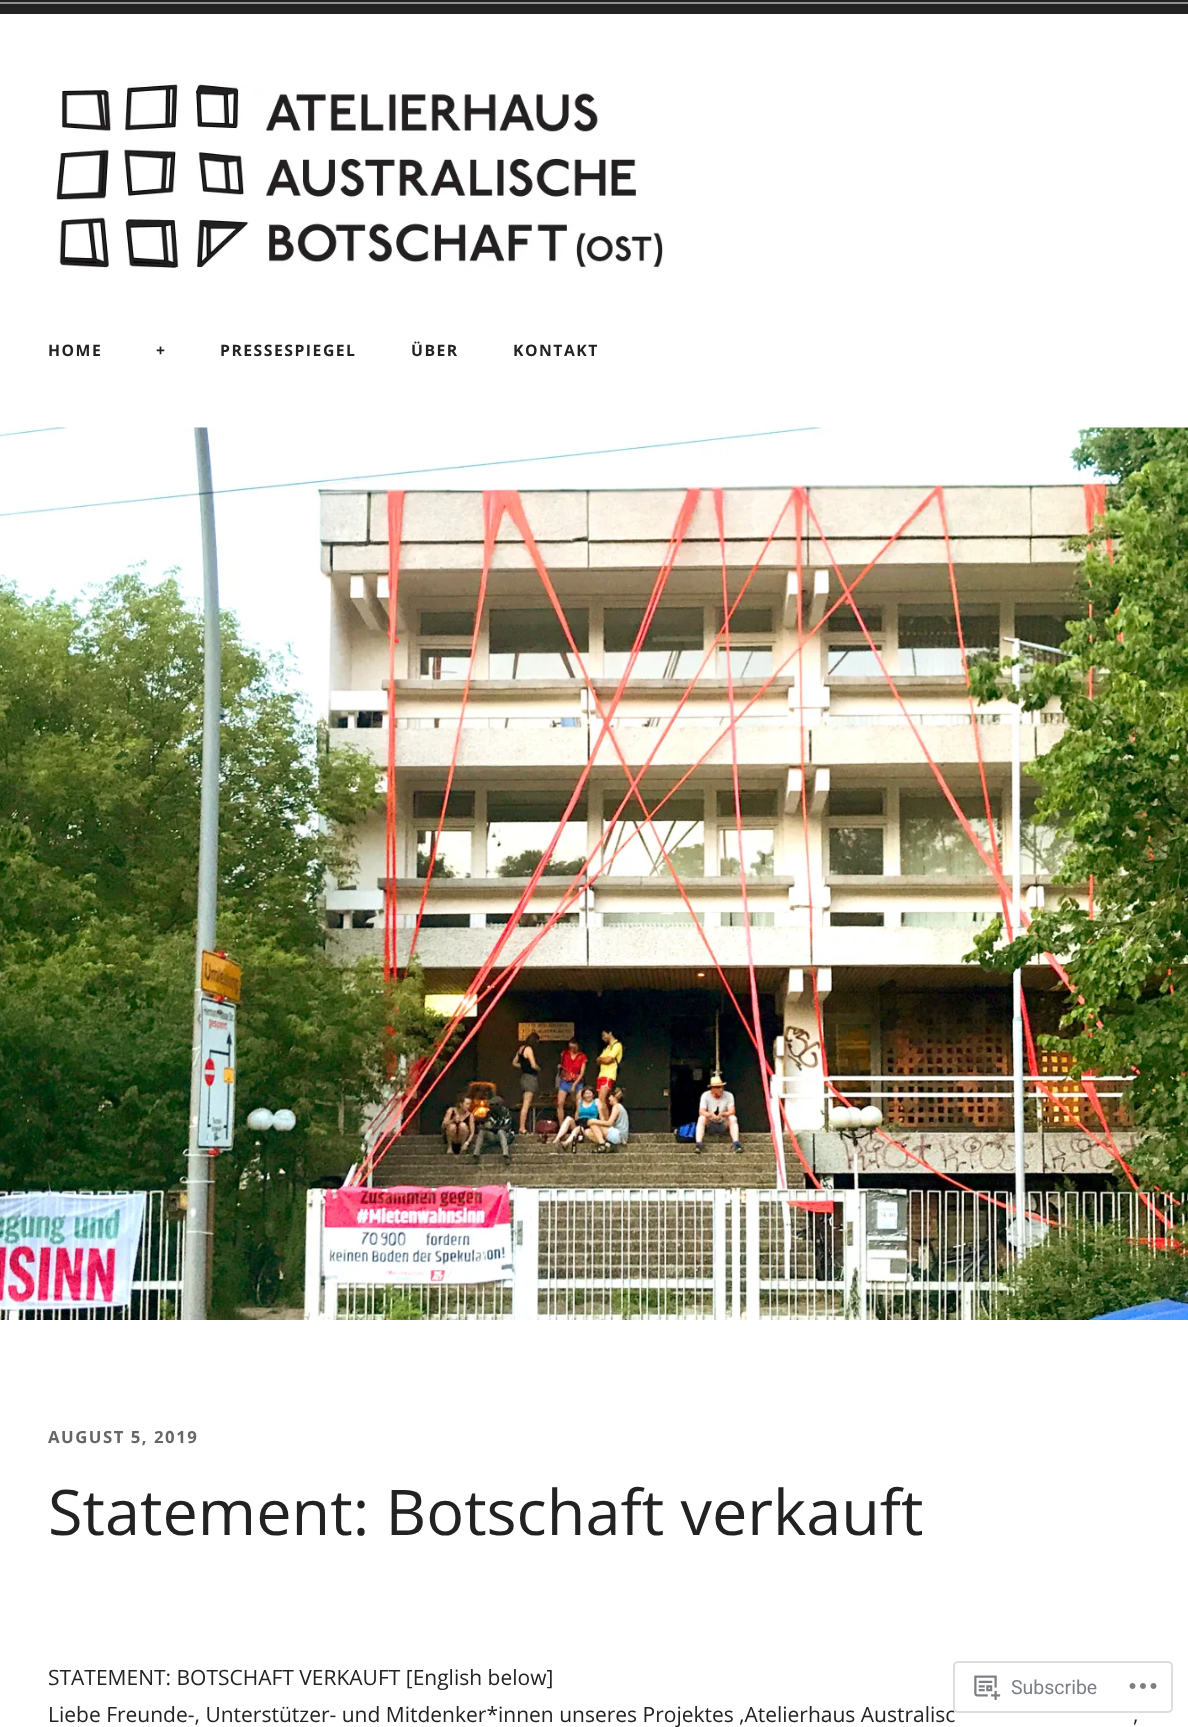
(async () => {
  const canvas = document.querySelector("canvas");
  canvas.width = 1188;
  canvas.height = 1727;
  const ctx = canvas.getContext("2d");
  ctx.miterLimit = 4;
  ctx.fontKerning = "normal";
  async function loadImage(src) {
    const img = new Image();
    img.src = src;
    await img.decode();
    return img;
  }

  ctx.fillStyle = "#ffffff";
  ctx.fillRect(0, 0, 1188, 1727);
  ctx.fillStyle = "#222222";
  ctx.fillRect(0, 0, 1188, 14);
  ctx.fillStyle = "#919191";
  ctx.fillRect(0, 2, 1188, 2);
  ctx.drawImage(await loadImage("img/1.png"), 55, 84, 609, 185);
  ctx.drawImage(await loadImage("img/2.png"), 0, 427, 1188, 893);
  ctx.letterSpacing = "1.5px";
  ctx.font = "bold 15.75px Open Sans";
  ctx.fillStyle = "#222222";
  for (const [text, x, y] of [
    ["HOME", 48, 356],
    ["+", 156, 356],
    ["PRESSESPIEGEL", 220, 356],
    ["ÜBER", 411, 356],
    ["KONTAKT", 513, 356],
  ]) {
    ctx.fillText(text, x, y);
  }
  ctx.font = "bold 16.75px Open Sans";
  ctx.fillStyle = "#666666";
  ctx.fillText("AUGUST 5, 2019", 48, 1443);
  ctx.letterSpacing = "0px";
  ctx.font = "63px Open Sans";
  ctx.fillStyle = "#222222";
  ctx.fillText("Statement: Botschaft verkauft", 48, 1535);
  ctx.font = "21px Open Sans";
  for (const [text, x, y] of [
    ["STATEMENT: BOTSCHAFT VERKAUFT [English below]", 48, 1685],
    ["Liebe Freunde-, Unterstützer- und Mitdenker*innen unseres Projektes ‚Atelierhaus Australisc", 48, 1722],
    [",", 1133, 1722],
  ]) {
    ctx.fillText(text, x, y);
  }
  ctx.fillStyle = "rgba(255, 255, 255, 0.98)";
  ctx.beginPath();
  ctx.roundRect(953, 1661, 220, 52, 5);
  ctx.fill();
  ctx.beginPath();
  ctx.roundRect(954, 1662, 218, 50, 4);
  ctx.strokeStyle = "rgba(220, 220, 222, 0.98)";
  ctx.lineWidth = 2;
  ctx.stroke();
  ctx.drawImage(await loadImage("img/3.png"), 974, 1675, 27, 25);
  ctx.font = "19.5px Roboto";
  ctx.fillStyle = "#7b7f85";
  ctx.fillText("Subscribe", 1011, 1694);
  ctx.drawImage(await loadImage("img/4.png"), 1129, 1683, 28, 6);
})();
